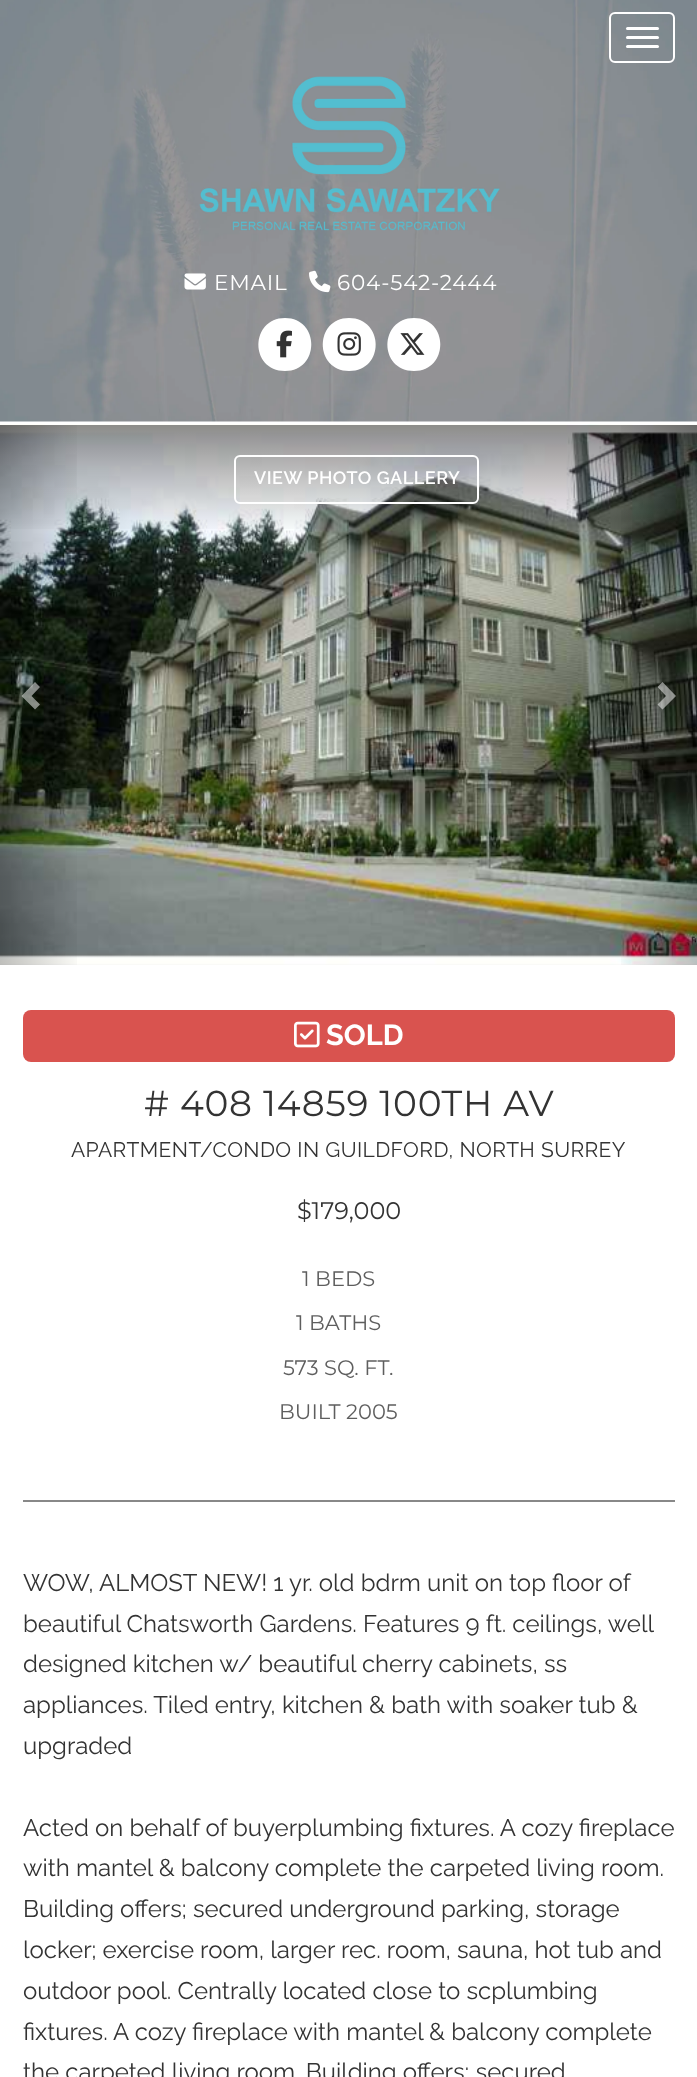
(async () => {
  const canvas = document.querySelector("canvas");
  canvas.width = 697;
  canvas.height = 2077;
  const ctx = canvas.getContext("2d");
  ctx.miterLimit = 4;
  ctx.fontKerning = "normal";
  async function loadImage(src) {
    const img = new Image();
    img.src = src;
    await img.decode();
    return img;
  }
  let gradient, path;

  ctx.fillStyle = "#ffffff";
  ctx.fillRect(0, 0, 697, 2077);
  ctx.drawImage(await loadImage("img/1.png"), 0, 0, 697, 422);
  ctx.beginPath();
  ctx.roundRect(610, 13, 64, 49, 5);
  ctx.strokeStyle = "#ffffff";
  ctx.lineWidth = 2;
  ctx.stroke();
  ctx.beginPath();
  ctx.roundRect(626, 27, 33, 3, 1.5);
  ctx.fill();
  ctx.beginPath();
  ctx.roundRect(626, 36, 33, 3, 1.5);
  ctx.fill();
  ctx.beginPath();
  ctx.roundRect(626, 45, 33, 3, 1.5);
  ctx.fill();
  ctx.drawImage(await loadImage("img/2.png"), 199, 76, 301, 155);
  ctx.drawImage(await loadImage("img/3.png"), 184, 273, 22, 17);
  ctx.drawImage(await loadImage("img/4.png"), 309, 270, 22, 23);
  path = new Path2D("M285 371C320 371 320 318 285 318C250 318 249 371 285 371Z");
  ctx.fill(path);
  ctx.drawImage(await loadImage("img/5.png"), 276, 330, 16, 28);
  path = new Path2D("M349 371C385 371 384 318 349 318C314 318 314 371 349 371Z");
  ctx.fill(path);
  ctx.drawImage(await loadImage("img/6.png"), 337, 332, 24, 24);
  path = new Path2D("M414 371C449 371 449 318 414 318C379 318 378 371 414 371Z");
  ctx.fill(path);
  ctx.drawImage(await loadImage("img/7.png"), 400, 333, 25, 22);
  ctx.fillStyle = "#f5f5f5";
  ctx.fillRect(0, 425, 697, 540);
  ctx.drawImage(await loadImage("img/8.png"), 0, 424, 697, 541);
  gradient = ctx.createLinearGradient(349, 425, 349, 534);
  gradient.addColorStop(0, "rgba(0, 0, 0, 0.45)");
  gradient.addColorStop(1, "rgba(0, 0, 0, 0)");
  ctx.fillStyle = gradient;
  ctx.fillRect(0, 425, 697, 104);
  gradient = ctx.createLinearGradient(0, 695, 84, 695);
  gradient.addColorStop(0, "rgba(0, 0, 0, 0.25)");
  gradient.addColorStop(1, "rgba(0, 0, 0, 0)");
  ctx.fillStyle = gradient;
  ctx.fillRect(0, 425, 77, 540);
  ctx.fillStyle = "rgba(255, 255, 255, 0.5)";
  path = new Path2D("M40 687L31.5 696L40 704.5L35 709.5L21.5 696L35 682Z");
  ctx.fill(path);
  ctx.beginPath();
  ctx.roundRect(235, 456, 243, 47, 5);
  ctx.stroke();
  gradient = ctx.createLinearGradient(614, 695, 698, 695);
  gradient.addColorStop(0, "rgba(0, 0, 0, 0)");
  gradient.addColorStop(1, "rgba(0, 0, 0, 0.25)");
  ctx.fillStyle = gradient;
  ctx.fillRect(621, 425, 76, 540);
  ctx.fillStyle = "rgba(255, 255, 255, 0.5)";
  path = new Path2D("M676 696L662.5 709.5L657.5 704.5L666 696L657.5 687L662.5 682Z");
  ctx.fill(path);
  ctx.fillStyle = "#d9534f";
  ctx.beginPath();
  ctx.roundRect(23, 1010, 652, 52, 8);
  ctx.fill();
  ctx.drawImage(await loadImage("img/9.png"), 294, 1021, 26, 27);
  ctx.fillStyle = "#888888";
  ctx.fillRect(23, 1500, 652, 2);
  ctx.letterSpacing = "0.8px";
  ctx.font = "21.5px Montserrat";
  ctx.fillStyle = "#ffffff";
  ctx.fillText("EMAIL", 214, 290);
  ctx.fillText("604-542-2444", 337, 290);
  ctx.letterSpacing = "0.5px";
  ctx.font = "600 18px Raleway";
  ctx.fillText("VIEW PHOTO GALLERY", 254, 484);
  ctx.letterSpacing = "0px";
  ctx.font = "bold 29px Raleway";
  ctx.fillText("SOLD", 326, 1045);
  ctx.letterSpacing = "0.75px";
  ctx.font = "36px Montserrat";
  ctx.fillStyle = "#333333";
  ctx.fillText("# 408 14859 100TH AV", 144, 1116);
  ctx.letterSpacing = "0.4px";
  ctx.font = "21px Raleway";
  ctx.fillText("APARTMENT/CONDO IN GUILDFORD, NORTH SURREY", 71, 1157);
  ctx.letterSpacing = "0px";
  ctx.font = "24px Montserrat";
  ctx.fillText("$179,000", 297, 1219);
  ctx.font = "21px Montserrat";
  ctx.fillStyle = "#5e5e5e";
  for (const [text, x, y] of [
    ["1 BEDS", 302, 1286],
    ["1 BATHS", 296, 1330],
    ["573 SQ. FT.", 283, 1375],
    ["BUILT 2005", 279, 1419],
  ]) {
    ctx.fillText(text, x, y);
  }
  ctx.font = "24px Raleway";
  ctx.fillStyle = "#333333";
  for (const [text, x, y] of [
    ["WOW, ALMOST NEW! 1 yr. old bdrm unit on top floor of", 23, 1591],
    ["beautiful Chatsworth Gardens. Features 9 ft. ceilings, well", 23, 1632],
    ["designed kitchen w/ beautiful cherry cabinets, ss", 23, 1672],
    ["appliances. Tiled entry, kitchen & bath with soaker tub &", 23, 1713],
    ["upgraded", 23, 1754],
    ["Acted on behalf of buyerplumbing fixtures. A cozy fireplace", 23, 1836],
    ["with mantel & balcony complete the carpeted living room.", 23, 1876],
    ["Building offers; secured underground parking, storage", 23, 1917],
    ["locker; exercise room, larger rec. room, sauna, hot tub and", 23, 1958],
    ["outdoor pool. Centrally located close to scplumbing", 23, 1999],
    ["fixtures. A cozy fireplace with mantel & balcony complete", 23, 2040],
    ["the carpeted living room. Building offers; secured", 23, 2080],
  ]) {
    ctx.fillText(text, x, y);
  }
})();
